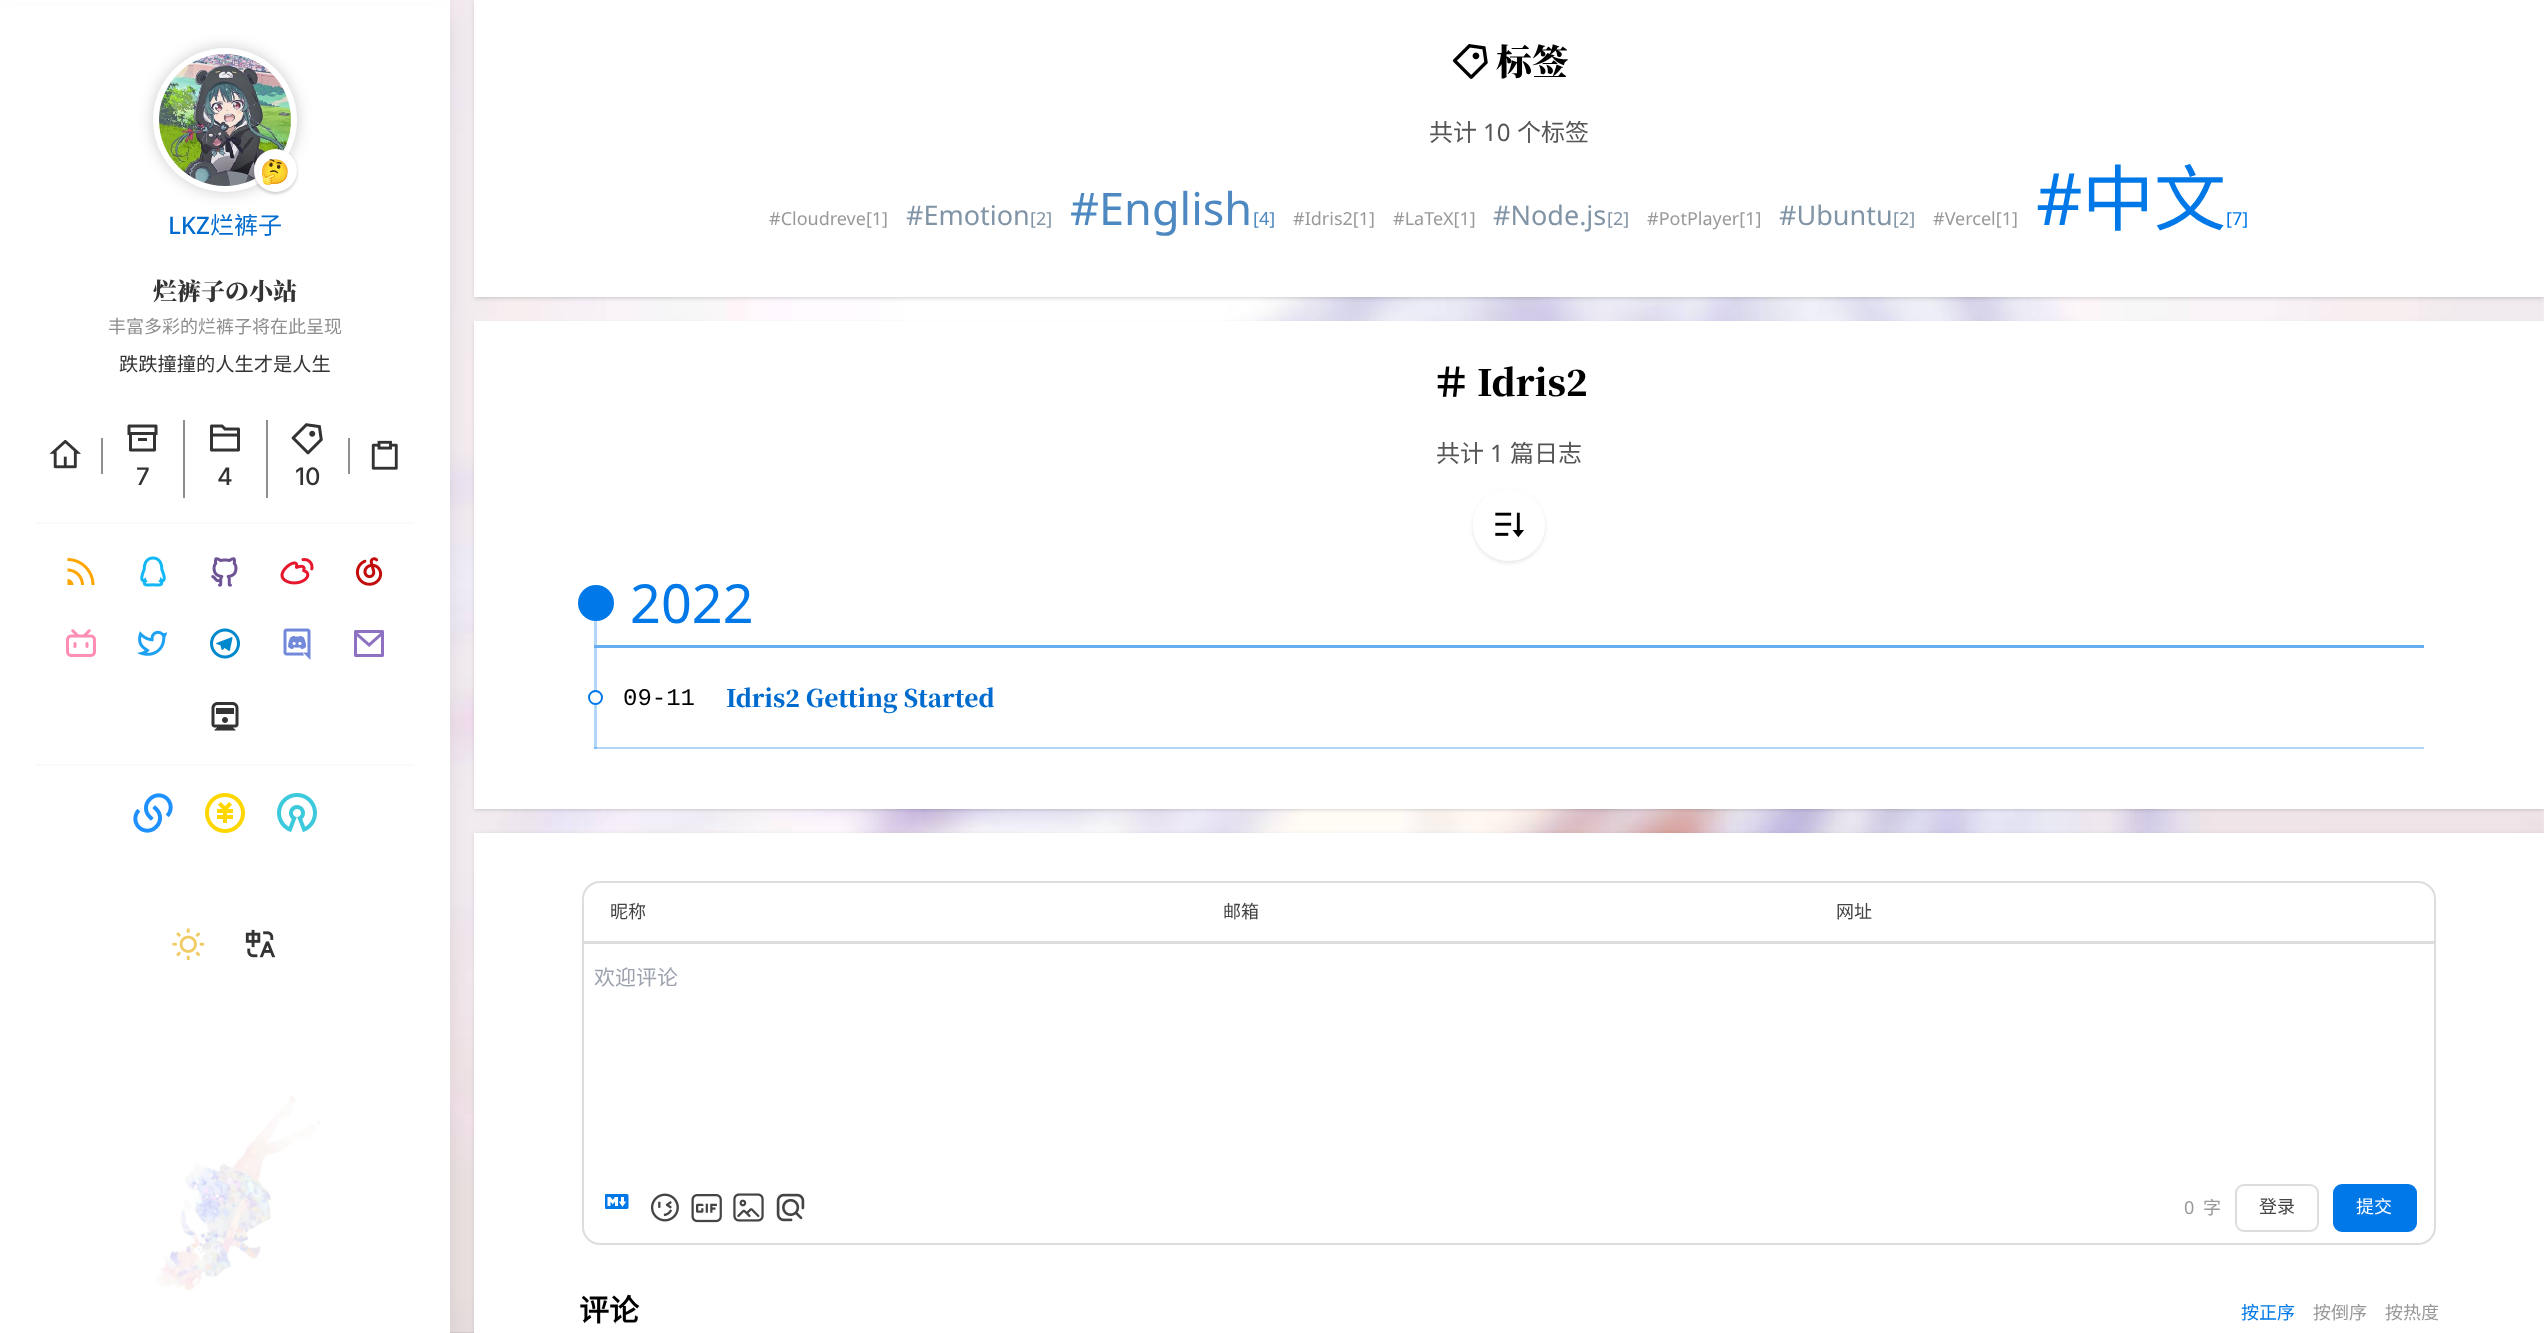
(async () => {
  const canvas = document.querySelector("canvas");
  canvas.width = 2544;
  canvas.height = 1333;
  const ctx = canvas.getContext("2d");
  ctx.miterLimit = 4;
  ctx.fontKerning = "normal";
  async function loadImage(src) {
    const img = new Image();
    img.src = src;
    await img.decode();
    return img;
  }
  let path;

  ctx.fillStyle = "#ffffff";
  ctx.fillRect(0, 0, 2544, 1333);
  ctx.drawImage(await loadImage("img/1.png"), 450, 0, 2094, 1333);
  ctx.fillStyle = "rgba(0, 0, 0, 0.1)";
  ctx.filter = "blur(1.5px)";
  ctx.beginPath();
  ctx.rect(476, 3, 2067, 294);
  ctx.fill();
  ctx.filter = "none";
  ctx.filter = "blur(2px)";
  ctx.beginPath();
  ctx.rect(474, 2, 2070, 297);
  ctx.fill();
  ctx.filter = "none";
  ctx.fillStyle = "#ffffff";
  ctx.fillRect(474, 0, 2070, 297);
  ctx.fillStyle = "rgba(0, 0, 0, 0.1)";
  ctx.filter = "blur(1.5px)";
  ctx.beginPath();
  ctx.rect(476, 324, 2067, 485);
  ctx.fill();
  ctx.filter = "none";
  ctx.filter = "blur(2px)";
  ctx.beginPath();
  ctx.rect(474, 323, 2070, 487);
  ctx.fill();
  ctx.filter = "none";
  ctx.fillStyle = "#ffffff";
  ctx.fillRect(474, 321, 2070, 488);
  ctx.fillStyle = "rgba(0, 0, 0, 0.1)";
  ctx.filter = "blur(2px)";
  ctx.beginPath();
  ctx.rect(474, 834, 2070, 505);
  ctx.fill();
  ctx.filter = "none";
  ctx.fillStyle = "#ffffff";
  ctx.fillRect(474, 833, 2070, 500);
  ctx.fillStyle = "rgba(0, 0, 0, 0.1)";
  ctx.filter = "blur(11px)";
  ctx.beginPath();
  ctx.rect(5, 20, 441, 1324);
  ctx.fill();
  ctx.filter = "none";
  ctx.fillStyle = "#ffffff";
  ctx.fillRect(0, 6, 450, 1327);
  ctx.drawImage(await loadImage("img/2.png"), 156, 1095, 164, 196);
  ctx.fillStyle = "rgba(0, 0, 0, 0.2)";
  ctx.filter = "blur(7.5px)";
  ctx.beginPath();
  ctx.roundRect(153, 48, 144, 144, 72);
  ctx.fill();
  ctx.filter = "none";
  ctx.fillStyle = "#ffffff";
  ctx.beginPath();
  ctx.arc(225, 120, 72, 0, Math.PI * 2);
  ctx.fill();
  ctx.drawImage(await loadImage("img/3.png"), 159, 54, 132, 132);
  ctx.fillStyle = "rgba(0, 0, 0, 0.2)";
  ctx.filter = "blur(1.5px)";
  ctx.beginPath();
  ctx.roundRect(254, 150, 43, 44, 21.5);
  ctx.fill();
  ctx.filter = "none";
  ctx.fillStyle = "#ffffff";
  ctx.beginPath();
  ctx.arc(275.5, 170.5, 21.5, 0, Math.PI * 2);
  ctx.fill();
  ctx.beginPath();
  ctx.arc(275.5, 170.5, 20.5, 0, Math.PI * 2);
  ctx.strokeStyle = "rgba(255, 255, 255, 0.1)";
  ctx.lineWidth = 2;
  ctx.stroke();
  ctx.fillStyle = "#8e8e8e";
  ctx.fillRect(101, 438, 2, 36);
  ctx.drawImage(await loadImage("img/4.png"), 49, 440, 32, 29);
  ctx.fillRect(348, 438, 2, 36);
  ctx.drawImage(await loadImage("img/5.png"), 371, 440, 27, 30);
  ctx.drawImage(await loadImage("img/6.png"), 127, 424, 31, 28);
  ctx.fillRect(183, 420, 2, 78);
  ctx.drawImage(await loadImage("img/7.png"), 210, 424, 30, 28);
  ctx.fillRect(266, 420, 2, 78);
  ctx.drawImage(await loadImage("img/8.png"), 291, 423, 32, 32);
  ctx.fillStyle = "#fafafb";
  ctx.fillRect(36, 522, 378, 2);
  ctx.drawImage(await loadImage("img/9.png"), 67, 558, 28, 27);
  ctx.drawImage(await loadImage("img/10.png"), 140, 556, 26, 31);
  ctx.drawImage(await loadImage("img/11.png"), 211, 557, 27, 30);
  ctx.drawImage(await loadImage("img/12.png"), 280, 558, 34, 27);
  ctx.drawImage(await loadImage("img/13.png"), 355, 557, 28, 29);
  ctx.drawImage(await loadImage("img/14.png"), 66, 629, 30, 28);
  ctx.drawImage(await loadImage("img/15.png"), 137, 630, 31, 26);
  ctx.drawImage(await loadImage("img/16.png"), 210, 628, 30, 31);
  ctx.drawImage(await loadImage("img/17.png"), 283, 628, 28, 32);
  ctx.drawImage(await loadImage("img/18.png"), 354, 630, 30, 27);
  ctx.drawImage(await loadImage("img/19.png"), 211, 702, 28, 29);
  ctx.fillRect(36, 764, 378, 2);
  ctx.drawImage(await loadImage("img/20.png"), 133, 793, 40, 40);
  ctx.drawImage(await loadImage("img/21.png"), 205, 793, 40, 40);
  ctx.drawImage(await loadImage("img/22.png"), 277, 793, 40, 39);
  ctx.drawImage(await loadImage("img/23.png"), 172, 928, 33, 33);
  ctx.drawImage(await loadImage("img/24.png"), 245, 929, 31, 29);
  ctx.drawImage(await loadImage("img/25.png"), 1452, 44, 36, 35);
  ctx.drawImage(await loadImage("img/26.png"), 1437, 366, 28, 31);
  ctx.save();
  path = new Path2D("M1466 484H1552V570H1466ZM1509 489C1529 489 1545 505 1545 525C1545 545 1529 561 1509 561C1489 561 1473 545 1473 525C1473 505 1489 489 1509 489Z");
  ctx.clip(path, "evenodd");
  ctx.fillStyle = "rgba(0, 0, 0, 0.1)";
  ctx.filter = "blur(2px)";
  ctx.beginPath();
  ctx.roundRect(1473, 491, 72, 72, 36);
  ctx.fill();
  ctx.filter = "none";
  ctx.restore();
  ctx.drawImage(await loadImage("img/27.png"), 1495, 512, 29, 26);
  ctx.fillStyle = "#66aef1";
  ctx.fillRect(594, 645, 1830, 3);
  ctx.fillStyle = "#b3d7f8";
  ctx.fillRect(594, 620, 3, 25);
  ctx.fillStyle = "#0078e7";
  ctx.beginPath();
  ctx.arc(596, 603, 18, 0, Math.PI * 2);
  ctx.fill();
  ctx.fillStyle = "#b3d7f8";
  ctx.fillRect(594, 648, 3, 101);
  ctx.fillStyle = "rgba(0, 120, 231, 0.3)";
  ctx.fillRect(594, 747, 1830, 2);
  ctx.fillStyle = "#ffffff";
  ctx.beginPath();
  ctx.arc(595.5, 697.5, 6.5, 0, Math.PI * 2);
  ctx.fill();
  ctx.strokeStyle = "#0078e7";
  ctx.stroke();
  ctx.beginPath();
  ctx.roundRect(583, 882, 1852, 362, 17);
  ctx.strokeStyle = "#dddddd";
  ctx.stroke();
  ctx.fillStyle = "#dddddd";
  ctx.fillRect(584, 941, 1851, 3);
  ctx.drawImage(await loadImage("img/28.png"), 605, 1194, 24, 15);
  ctx.drawImage(await loadImage("img/29.png"), 650, 1193, 29, 29);
  ctx.drawImage(await loadImage("img/30.png"), 691, 1194, 31, 29);
  ctx.drawImage(await loadImage("img/31.png"), 733, 1193, 31, 29);
  ctx.drawImage(await loadImage("img/32.png"), 776, 1193, 29, 29);
  ctx.beginPath();
  ctx.roundRect(2236, 1185, 82, 46, 8);
  ctx.stroke();
  ctx.fillStyle = "#0078e7";
  ctx.beginPath();
  ctx.roundRect(2334, 1185, 82, 46, 8);
  ctx.fill();
  ctx.strokeStyle = "#0078e7";
  ctx.stroke();
  ctx.font = "24px Noto Color Emoji";
  ctx.fillStyle = "#006bce";
  ctx.fillText("🤔", 260, 180);
  ctx.font = "500 24px Noto Sans";
  ctx.fillText("LKZ", 168, 234);
  ctx.font = "24px Noto Sans CJK SC";
  ctx.fillText("烂裤子", 210, 234);
  ctx.font = "200 24px Noto Serif SC";
  ctx.fillStyle = "#333333";
  ctx.fillText("烂裤子の小站", 153, 300);
  ctx.font = "18px Noto Sans CJK SC";
  ctx.fillStyle = "#8e8e8e";
  ctx.fillText("丰富多彩的烂裤子将在此呈现", 108, 333);
  ctx.font = "19.25px Noto Sans CJK SC";
  ctx.fillStyle = "#333333";
  ctx.fillText("跌跌撞撞的人生才是人生", 119, 371);
  ctx.font = "500 24px Inter";
  for (const [text, x, y] of [
    ["7", 136, 485],
    ["4", 217, 485],
    ["10", 295, 485],
  ]) {
    ctx.fillText(text, x, y);
  }
  ctx.font = "200 36px Noto Serif SC";
  ctx.fillStyle = "#000000";
  ctx.fillText("标签", 1496, 75);
  ctx.font = "24px Noto Sans CJK SC";
  ctx.fillStyle = "#555555";
  ctx.fillText("共计", 1429, 141);
  ctx.font = "24px Noto Sans";
  ctx.fillText("10", 1483, 141);
  ctx.font = "24px Noto Sans CJK SC";
  ctx.fillText("个标签", 1517, 141);
  ctx.font = "18px Noto Sans";
  ctx.fillStyle = "#999999";
  ctx.fillText("#Cloudreve[1]", 769, 225);
  ctx.font = "27px Noto Sans";
  ctx.fillStyle = "#8094a6";
  ctx.fillText("#Emotion", 906, 225);
  ctx.font = "18px Noto Sans";
  ctx.fillText("[2]", 1030, 225);
  ctx.font = "45px Noto Sans";
  ctx.fillStyle = "#4d89c0";
  ctx.fillText("#English", 1070, 225);
  ctx.font = "18px Noto Sans";
  ctx.fillText("[4]", 1253, 225);
  ctx.fillStyle = "#999999";
  ctx.fillText("#Idris2[1]", 1293, 225);
  ctx.fillText("#LaTeX[1]", 1393, 225);
  ctx.font = "27px Noto Sans";
  ctx.fillStyle = "#8094a6";
  ctx.fillText("#Node.js", 1493, 225);
  ctx.font = "18px Noto Sans";
  ctx.fillText("[2]", 1607, 225);
  ctx.fillStyle = "#999999";
  ctx.fillText("#PotPlayer[1]", 1647, 225);
  ctx.font = "27px Noto Sans";
  ctx.fillStyle = "#8094a6";
  ctx.fillText("#Ubuntu", 1779, 225);
  ctx.font = "18px Noto Sans";
  ctx.fillText("[2]", 1893, 225);
  ctx.fillStyle = "#999999";
  ctx.fillText("#Vercel[1]", 1933, 225);
  ctx.font = "72px Noto Sans";
  ctx.fillStyle = "#0078e7";
  ctx.fillText("#", 2036, 225);
  ctx.font = "72px Noto Sans CJK SC";
  ctx.fillText("中文", 2082, 225);
  ctx.font = "18px Noto Sans";
  ctx.fillText("[7]", 2226, 225);
  ctx.font = "200 36px Noto Serif SC";
  ctx.fillStyle = "#000000";
  ctx.fillText("Idris2", 1477, 396);
  ctx.font = "24px Noto Sans CJK SC";
  ctx.fillStyle = "#555555";
  ctx.fillText("共计", 1436, 462);
  ctx.font = "24px Noto Sans";
  ctx.fillText("1", 1490, 462);
  ctx.font = "24px Noto Sans CJK SC";
  ctx.fillText("篇日志", 1510, 462);
  ctx.font = "54px Noto Sans";
  ctx.fillStyle = "#0078e7";
  ctx.fillText("2022", 630, 623);
  ctx.font = "24px Liberation Mono";
  ctx.fillStyle = "#000000";
  ctx.fillText("09-11", 623, 705);
  ctx.font = "200 24px Noto Serif SC";
  ctx.fillStyle = "#006bce";
  ctx.fillText("Idris2 Getting Started", 726, 707);
  ctx.font = "18px Noto Sans CJK SC";
  ctx.fillStyle = "#444444";
  for (const [text, x, y] of [
    ["昵称", 610, 918],
    ["邮箱", 1223, 918],
    ["网址", 1836, 918],
  ]) {
    ctx.fillText(text, x, y);
  }
  ctx.font = "21px Noto Sans CJK SC";
  ctx.fillStyle = "#9ca3af";
  ctx.fillText("欢迎评论", 594, 985);
  ctx.font = "18px Noto Sans";
  ctx.fillStyle = "#999999";
  ctx.fillText("0", 2184, 1214);
  ctx.font = "18px Noto Sans CJK SC";
  ctx.fillText("字", 2203, 1214);
  ctx.fillStyle = "#444444";
  ctx.fillText("登录", 2259, 1213);
  ctx.fillStyle = "#ffffff";
  ctx.fillText("提交", 2356, 1213);
  ctx.font = "bold 30px Noto Sans CJK SC";
  ctx.fillStyle = "#000000";
  ctx.fillText("评论", 579, 1321);
  ctx.font = "18px Noto Sans CJK SC";
  ctx.fillStyle = "#0078e7";
  ctx.fillText("按正序", 2241, 1319);
  ctx.fillStyle = "#999999";
  ctx.fillText("按倒序", 2313, 1319);
  ctx.fillText("按热度", 2385, 1319);
})();
